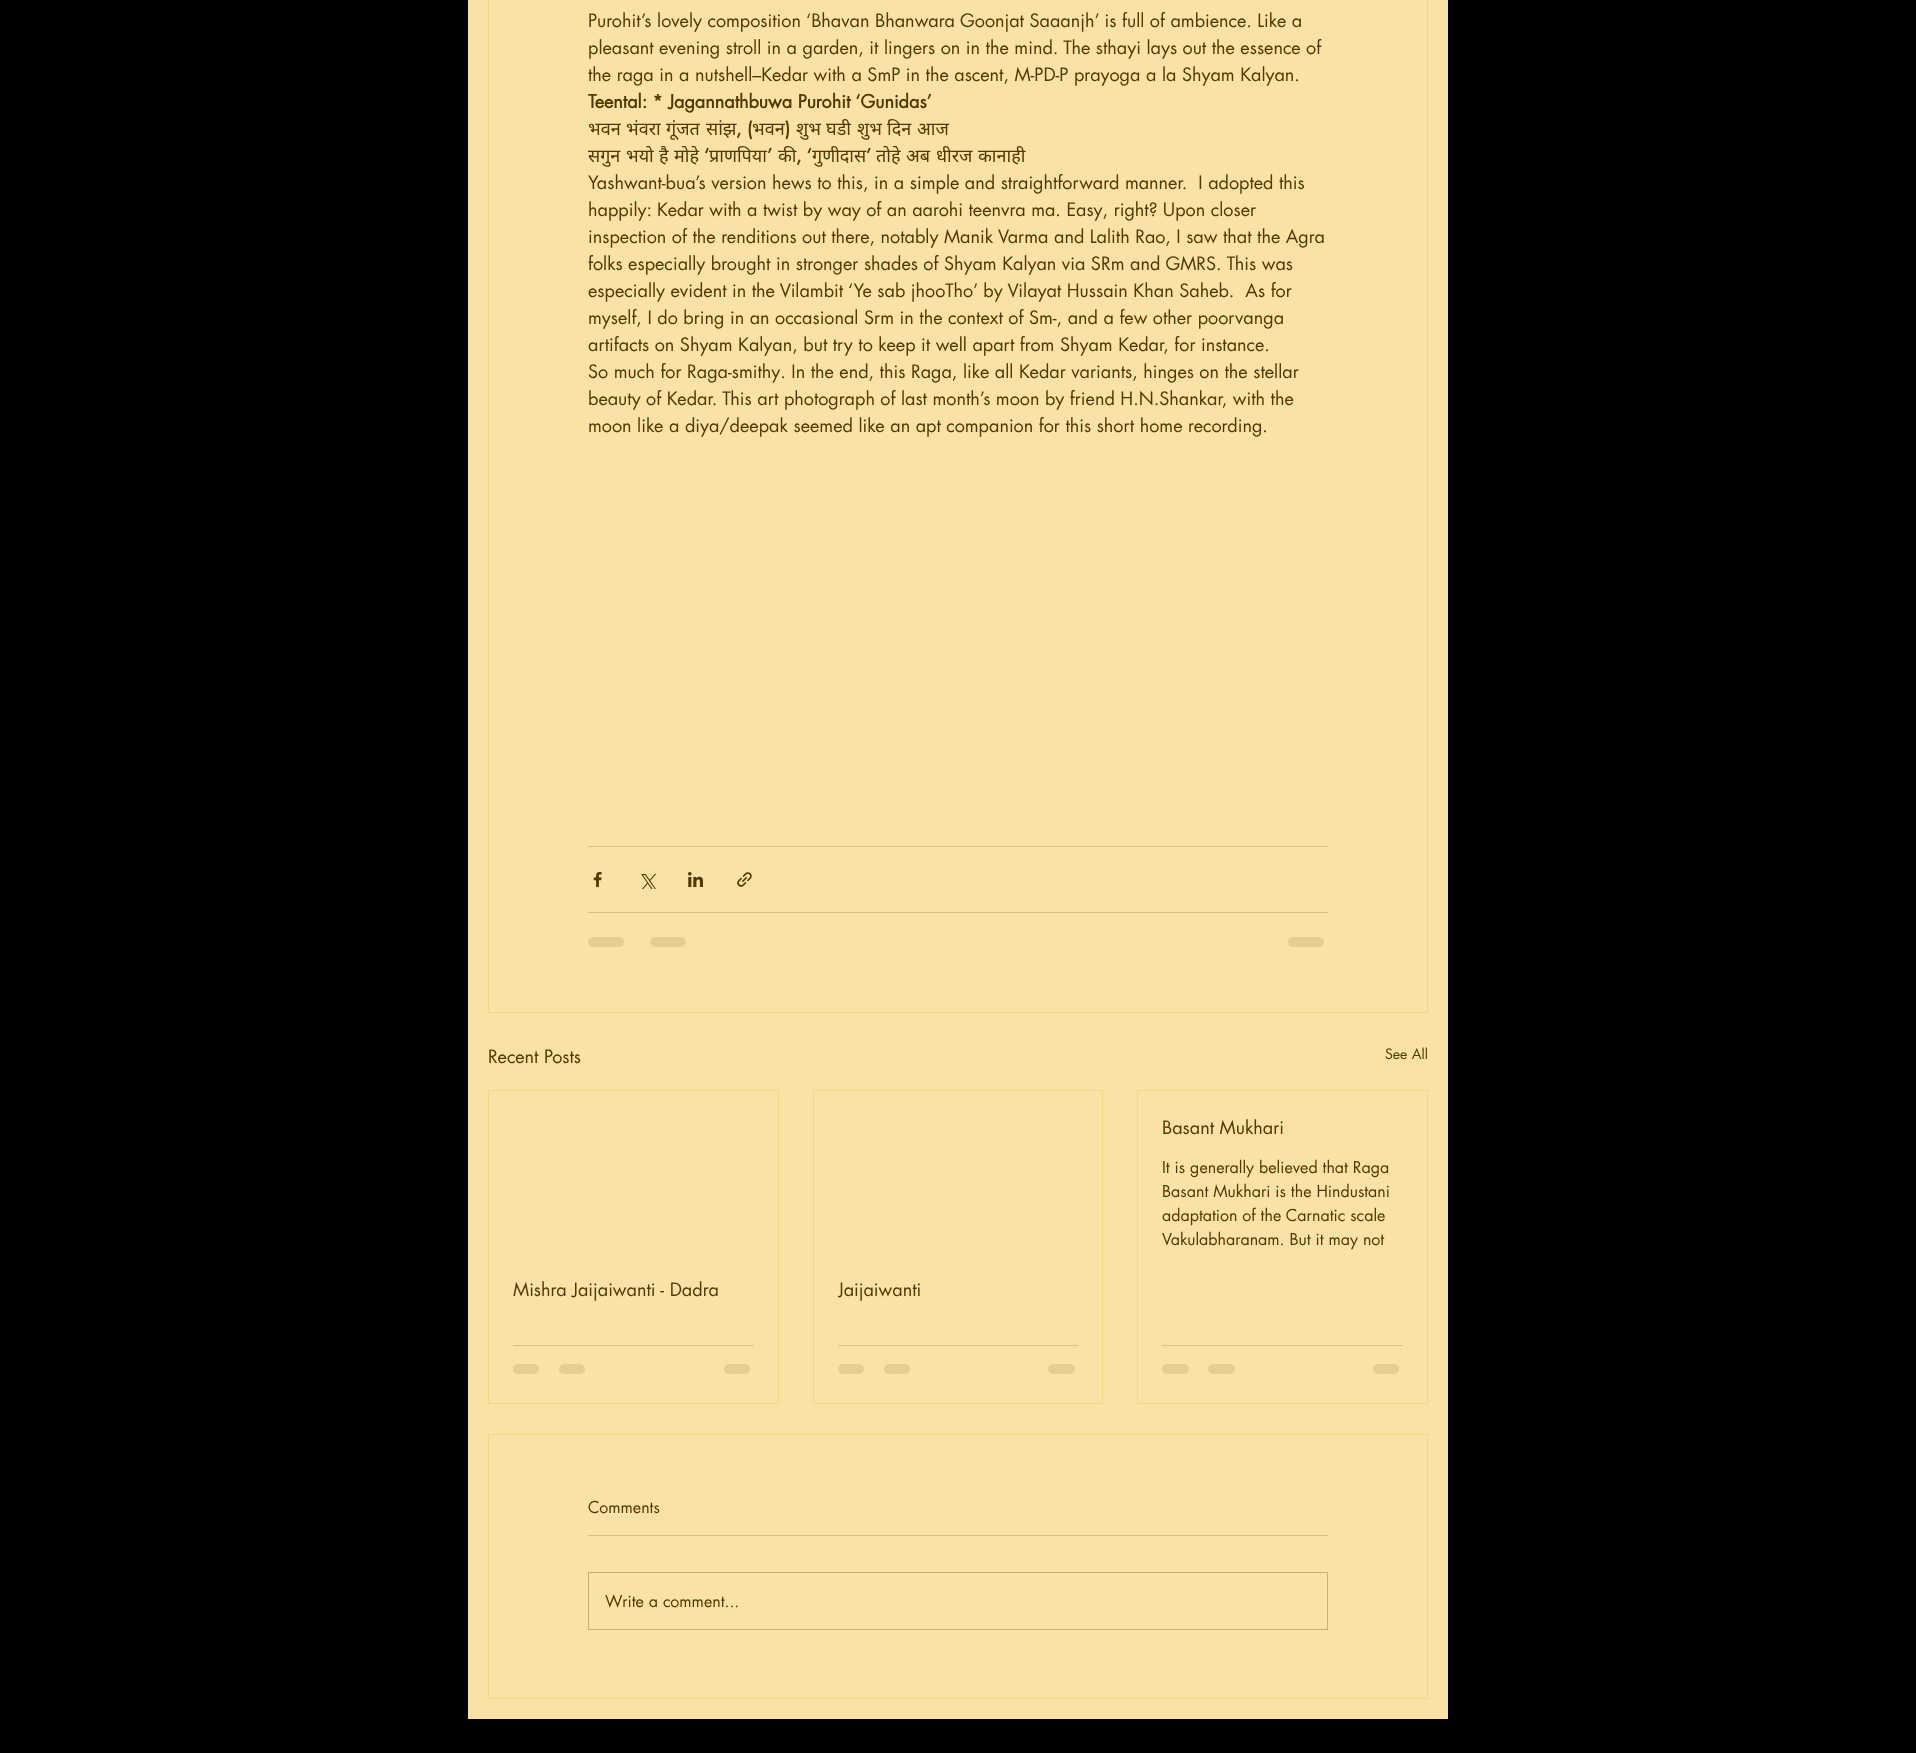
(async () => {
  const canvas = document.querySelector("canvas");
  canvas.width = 1916;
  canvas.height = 1753;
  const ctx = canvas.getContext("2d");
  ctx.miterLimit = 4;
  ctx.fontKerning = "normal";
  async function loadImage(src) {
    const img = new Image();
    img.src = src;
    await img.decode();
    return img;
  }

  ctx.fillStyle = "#000000";
  ctx.fillRect(0, 0, 1916, 1753);
  ctx.fillStyle = "#f9e2a6";
  ctx.fillRect(468, 0, 980, 1719);
  ctx.strokeStyle = "#f5d685";
  ctx.strokeRect(488.5, -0.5, 939, 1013);
  ctx.fillStyle = "#d7c085";
  ctx.fillRect(588, 846, 740, 1);
  ctx.drawImage(await loadImage("img/1.png"), 593, 872, 9, 15);
  ctx.drawImage(await loadImage("img/2.png"), 641, 874, 15, 15);
  ctx.drawImage(await loadImage("img/3.png"), 688, 872, 15, 15);
  ctx.drawImage(await loadImage("img/4.png"), 737, 872, 15, 15);
  ctx.fillRect(588, 912, 740, 1);
  ctx.fillStyle = "#e5ce92";
  ctx.beginPath();
  ctx.roundRect(588, 937, 36, 10, 5);
  ctx.fill();
  ctx.beginPath();
  ctx.roundRect(650, 937, 36, 10, 5);
  ctx.fill();
  ctx.beginPath();
  ctx.roundRect(1288, 937, 36, 10, 5);
  ctx.fill();
  ctx.strokeRect(1137.5, 1090.5, 290, 313);
  ctx.fillStyle = "#d7c085";
  ctx.fillRect(1162, 1345, 241, 1);
  ctx.fillStyle = "#e5ce92";
  ctx.beginPath();
  ctx.roundRect(1162, 1364, 27, 10, 5);
  ctx.fill();
  ctx.beginPath();
  ctx.roundRect(1208, 1364, 27, 10, 5);
  ctx.fill();
  ctx.beginPath();
  ctx.roundRect(1373, 1364, 26, 10, 5);
  ctx.fill();
  ctx.strokeRect(488.5, 1090.5, 290, 313);
  ctx.fillStyle = "#d7c085";
  ctx.fillRect(513, 1345, 241, 1);
  ctx.fillStyle = "#e5ce92";
  ctx.beginPath();
  ctx.roundRect(513, 1364, 26, 10, 5);
  ctx.fill();
  ctx.beginPath();
  ctx.roundRect(559, 1364, 26, 10, 5);
  ctx.fill();
  ctx.beginPath();
  ctx.roundRect(724, 1364, 26, 10, 5);
  ctx.fill();
  ctx.strokeRect(813.5, 1090.5, 289, 313);
  ctx.fillStyle = "#d7c085";
  ctx.fillRect(838, 1345, 240, 1);
  ctx.fillStyle = "#e5ce92";
  ctx.beginPath();
  ctx.roundRect(838, 1364, 26, 10, 5);
  ctx.fill();
  ctx.beginPath();
  ctx.roundRect(884, 1364, 26, 10, 5);
  ctx.fill();
  ctx.beginPath();
  ctx.roundRect(1048, 1364, 27, 10, 5);
  ctx.fill();
  ctx.strokeRect(488.5, 1434.5, 939, 264);
  ctx.fillStyle = "#d7c085";
  ctx.fillRect(588, 1535, 740, 1);
  ctx.strokeStyle = "#c6af74";
  ctx.strokeRect(588.5, 1572.5, 739, 57);
  ctx.font = "18px futura";
  ctx.fillStyle = "#4f3900";
  for (const [text, x, y] of [
    ["Purohit’s lovely composition ‘Bhavan Bhanwara Goonjat Saaanjh’ is full of ambience. Like a", 588, 27],
    ["pleasant evening stroll in a garden, it lingers on in the mind. The sthayi lays out the essence of", 588, 54],
    ["the raga in a nutshell–Kedar with a SmP in the ascent, M-PD-P prayoga a la Shyam Kalyan.", 588, 81],
  ]) {
    ctx.fillText(text, x, y);
  }
  ctx.font = "bold 18px futura";
  ctx.fillText("Teental: * Jagannathbuwa Purohit ‘Gunidas’", 588, 108);
  ctx.font = "18px Noto Sans";
  for (const [text, x, y] of [
    ["भवन", 588, 135],
    ["भंवरा", 626, 135],
    ["गूंजत", 666, 135],
    ["सांझ", 706, 135],
  ]) {
    ctx.fillText(text, x, y);
  }
  ctx.font = "bold 18px futura";
  ctx.fillText(", (", 736, 135);
  ctx.font = "18px Noto Sans";
  ctx.fillText("भवन", 752, 135);
  ctx.font = "bold 18px futura";
  ctx.fillText(")", 785, 135);
  ctx.font = "18px Noto Sans";
  for (const [text, x, y] of [
    ["घडी", 826, 135],
    ["दिन", 887, 135],
    ["शुभ", 796, 135],
    ["शुभ", 857, 135],
    ["आज", 917, 135],
    ["भयो", 626, 162],
    ["है", 659, 162],
    ["मोहे", 674, 162],
  ]) {
    ctx.fillText(text, x, y);
  }
  ctx.font = "bold 18px futura";
  ctx.fillText("‘", 704, 162);
  ctx.font = "18px Noto Sans";
  for (const [text, x, y] of [
    ["प्राणपिया", 709, 162],
    ["तोहे", 876, 162],
    ["धीरज", 936, 162],
    ["कानाही", 978, 162],
    ["सगुन", 588, 162],
  ]) {
    ctx.fillText(text, x, y);
  }
  ctx.font = "bold 18px futura";
  ctx.fillText("’", 767, 162);
  ctx.font = "18px Noto Sans";
  ctx.fillText("की", 778, 162);
  ctx.font = "bold 18px futura";
  ctx.fillText(", ‘", 796, 162);
  ctx.font = "18px Noto Sans";
  ctx.fillText("गुणीदास", 812, 162);
  ctx.font = "bold 18px futura";
  ctx.fillText("’", 866, 162);
  ctx.font = "18px Noto Sans";
  ctx.fillText("अब", 906, 162);
  ctx.font = "18px futura";
  for (const [text, x, y] of [
    ["Yashwant-bua’s version hews to this, in a simple and straightforward manner.  I adopted this", 588, 189],
    ["happily: Kedar with a twist by way of an aarohi teenvra ma. Easy, right? Upon closer", 588, 216],
    ["inspection of the renditions out there, notably Manik Varma and Lalith Rao, I saw that the Agra", 588, 243],
    ["folks especially brought in stronger shades of Shyam Kalyan via SRm and GMRS. This was", 588, 270],
    ["especially evident in the Vilambit ‘Ye sab jhooTho’ by Vilayat Hussain Khan Saheb.  As for", 588, 297],
    ["myself, I do bring in an occasional Srm in the context of Sm-, and a few other poorvanga", 588, 324],
    ["artifacts on Shyam Kalyan, but try to keep it well apart from Shyam Kedar, for instance.", 588, 351],
    ["So much for Raga-smithy. In the end, this Raga, like all Kedar variants, hinges on the stellar", 588, 378],
    ["beauty of Kedar. This art photograph of last month’s moon by friend H.N.Shankar, with the", 588, 405],
    ["moon like a diya/deepak seemed like an apt companion for this short home recording.", 588, 432],
    ["Recent Posts", 488, 1063],
  ]) {
    ctx.fillText(text, x, y);
  }
  ctx.font = "14px futura";
  ctx.fillText("See All", 1385, 1059);
  ctx.font = "18px futura";
  ctx.fillText("Basant Mukhari", 1162, 1134);
  ctx.font = "16px futura";
  for (const [text, x, y] of [
    ["It is generally believed that Raga", 1162, 1173],
    ["Basant Mukhari is the Hindustani", 1162, 1197],
    ["adaptation of the Carnatic scale", 1162, 1221],
    ["Vakulabharanam. But it may not", 1162, 1245],
  ]) {
    ctx.fillText(text, x, y);
  }
  ctx.font = "18px futura";
  ctx.fillText("Mishra Jaijaiwanti - Dadra", 513, 1296);
  ctx.save();
  ctx.beginPath();
  ctx.rect(838, 1277, 240, 24);
  ctx.clip();
  ctx.fillText("Jaijaiwanti", 838, 1296);
  ctx.restore();
  ctx.font = "16px futura";
  ctx.fillText("Comments", 588, 1513);
  ctx.fillText("Write a comment...", 605, 1607);
})();
